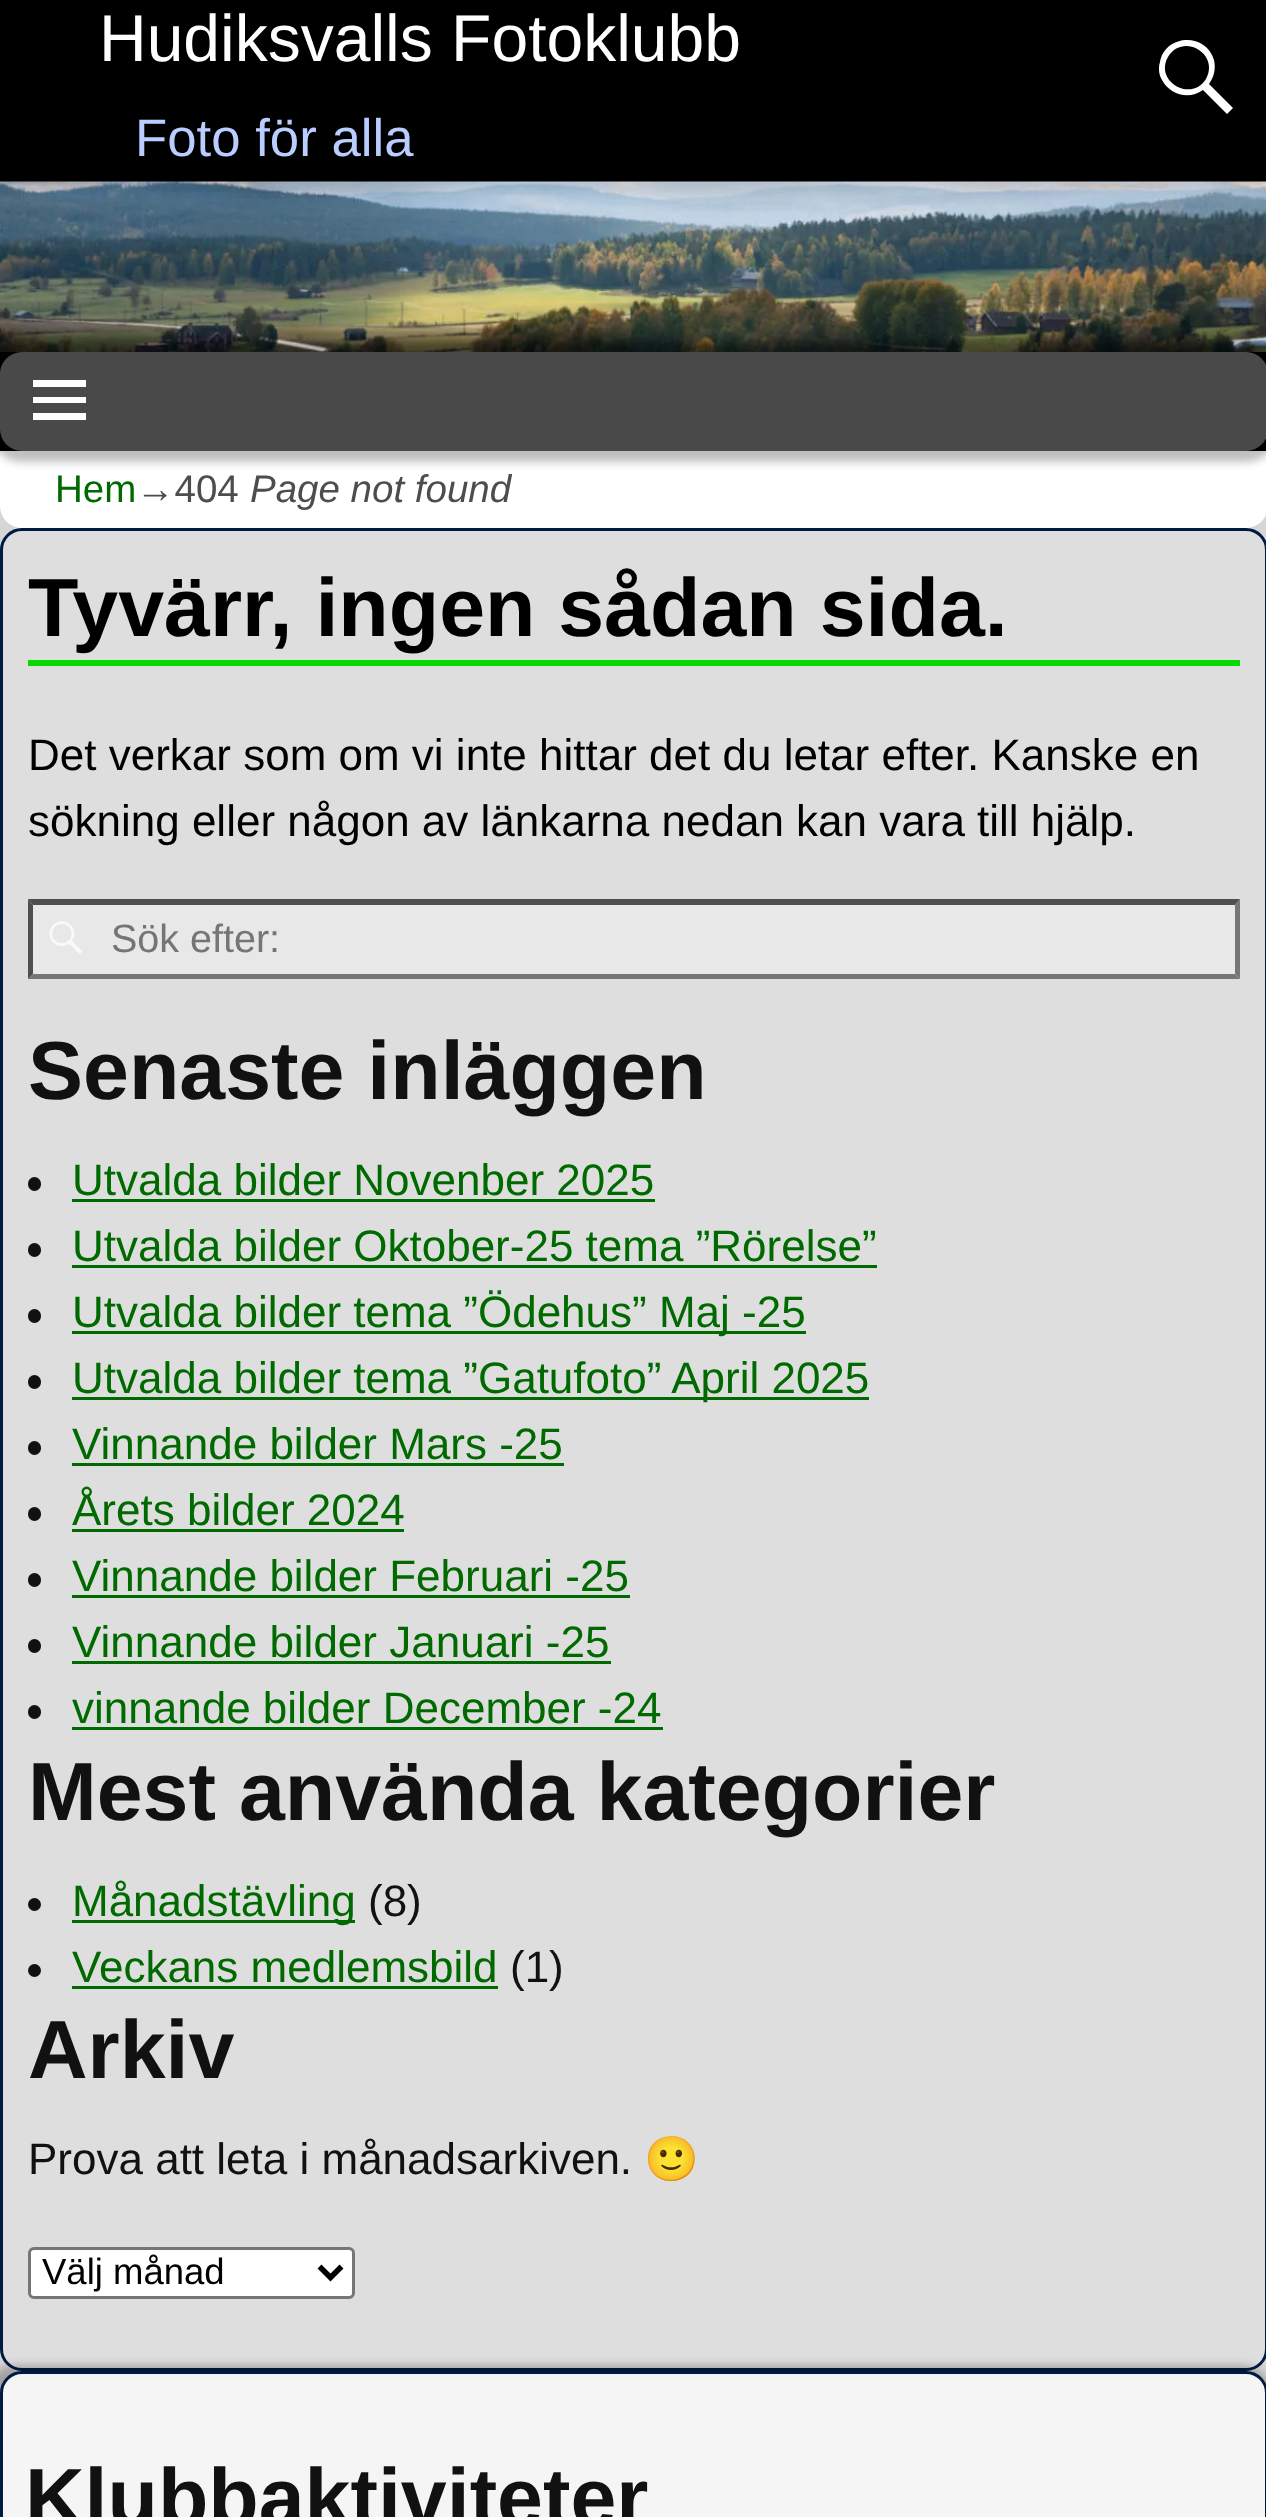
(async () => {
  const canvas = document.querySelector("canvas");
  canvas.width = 1266;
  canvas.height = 2517;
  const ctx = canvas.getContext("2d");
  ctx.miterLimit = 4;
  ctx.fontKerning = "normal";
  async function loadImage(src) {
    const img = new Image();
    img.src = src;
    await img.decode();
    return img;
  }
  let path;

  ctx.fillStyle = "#000000";
  ctx.fillRect(0, 0, 1266, 2517);
  ctx.fillStyle = "#ffffff";
  path = new Path2D("M1233 108L1227 114L1203 90C1189 100 1170 95 1162 80C1159 75 1158 68 1160 62C1165 34 1206 32 1214 60C1216 69 1214 77 1209 84ZM1168 57C1154 81 1191 103 1206 79C1220 54 1183 32 1168 57Z");
  ctx.fill(path);
  ctx.drawImage(await loadImage("img/1.png"), 0, 181, 1266, 171);
  ctx.fillStyle = "#d6d6d6";
  ctx.fillRect(0, 506, 1266, 1887);
  ctx.fillStyle = "#ffffff";
  path = new Path2D("M0 451H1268V506C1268 518 1258 528 1246 528H22C10 528 0 518 0 506Z");
  ctx.fill(path);
  ctx.fillStyle = "rgba(0, 0, 0, 0.25)";
  ctx.filter = "blur(4px)";
  ctx.beginPath();
  ctx.roundRect(-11, 341, 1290, 121, 33);
  ctx.fill();
  ctx.filter = "none";
  ctx.fillStyle = "#494949";
  ctx.beginPath();
  ctx.roundRect(0, 352, 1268, 99, 22);
  ctx.fill();
  ctx.fillStyle = "#ffffff";
  path = new Path2D("M33 420V413H86V420ZM33 380H86V387H33ZM33 403V397H86V403Z");
  ctx.fill(path);
  ctx.fillStyle = "#dedede";
  ctx.beginPath();
  ctx.roundRect(1.5, 529.5, 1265, 1840, 20.5);
  ctx.fill();
  ctx.strokeStyle = "#001b42";
  ctx.lineWidth = 3;
  ctx.stroke();
  ctx.fillStyle = "#07d900";
  ctx.fillRect(28, 660, 1212, 6);
  ctx.fillStyle = "#e8e8e8";
  ctx.fillRect(28, 899, 1212, 80);
  ctx.drawImage(await loadImage("img/2.png"), 49, 921, 34, 33);
  ctx.fillStyle = "#4f4f4f";
  path = new Path2D("M28 899H1240L1235 905H33Z");
  ctx.fill(path);
  ctx.fillStyle = "#767676";
  path = new Path2D("M1240 899V979L1235 974V905Z");
  ctx.fill(path);
  path = new Path2D("M1240 979H28L33 974H1235Z");
  ctx.fill(path);
  ctx.fillStyle = "#4f4f4f";
  path = new Path2D("M28 979V899L33 905V974Z");
  ctx.fill(path);
  ctx.fillStyle = "#111111";
  ctx.beginPath();
  ctx.roundRect(28, 1177, 13, 14, 6.5);
  ctx.fill();
  ctx.fillStyle = "#006900";
  ctx.fillRect(72, 1199, 583, 3);
  ctx.fillStyle = "#111111";
  ctx.beginPath();
  ctx.roundRect(28, 1243, 13, 14, 6.5);
  ctx.fill();
  ctx.fillStyle = "#006900";
  ctx.fillRect(72, 1265, 805, 3);
  ctx.fillStyle = "#111111";
  ctx.beginPath();
  ctx.roundRect(28, 1309, 13, 14, 6.5);
  ctx.fill();
  ctx.fillStyle = "#006900";
  ctx.fillRect(72, 1331, 734, 3);
  ctx.fillStyle = "#111111";
  ctx.beginPath();
  ctx.roundRect(28, 1375, 13, 14, 6.5);
  ctx.fill();
  ctx.fillStyle = "#006900";
  ctx.fillRect(72, 1397, 797, 3);
  ctx.fillStyle = "#111111";
  ctx.beginPath();
  ctx.roundRect(28, 1441, 13, 14, 6.5);
  ctx.fill();
  ctx.fillStyle = "#006900";
  ctx.fillRect(72, 1463, 492, 3);
  ctx.fillStyle = "#111111";
  ctx.beginPath();
  ctx.roundRect(28, 1507, 13, 14, 6.5);
  ctx.fill();
  ctx.fillStyle = "#006900";
  ctx.fillRect(72, 1529, 332, 3);
  ctx.fillStyle = "#111111";
  ctx.beginPath();
  ctx.roundRect(28, 1573, 13, 14, 6.5);
  ctx.fill();
  ctx.fillStyle = "#006900";
  ctx.fillRect(72, 1595, 558, 3);
  ctx.fillStyle = "#111111";
  ctx.beginPath();
  ctx.roundRect(28, 1639, 13, 14, 6.5);
  ctx.fill();
  ctx.fillStyle = "#006900";
  ctx.fillRect(72, 1661, 539, 3);
  ctx.fillStyle = "#111111";
  ctx.beginPath();
  ctx.roundRect(28, 1705, 13, 14, 6.5);
  ctx.fill();
  ctx.fillStyle = "#006900";
  ctx.fillRect(72, 1727, 591, 3);
  ctx.fillStyle = "#111111";
  ctx.beginPath();
  ctx.arc(34.5, 1904.5, 6.5, 0, Math.PI * 2);
  ctx.fill();
  ctx.fillStyle = "#006900";
  ctx.fillRect(72, 1920, 283, 3);
  ctx.fillStyle = "#111111";
  ctx.beginPath();
  ctx.arc(34.5, 1970.5, 6.5, 0, Math.PI * 2);
  ctx.fill();
  ctx.fillStyle = "#006900";
  ctx.fillRect(72, 1986, 426, 3);
  ctx.fillStyle = "#ffffff";
  ctx.beginPath();
  ctx.roundRect(29.5, 2248.5, 324, 49, 4.5);
  ctx.fill();
  ctx.strokeStyle = "#767676";
  ctx.stroke();
  path = new Path2D("M319.5 2266.5L330.5 2277.5L341.5 2266.5");
  ctx.strokeStyle = "#000000";
  ctx.lineWidth = 5.5;
  ctx.stroke(path);
  ctx.fillStyle = "rgba(0, 0, 0, 0.25)";
  ctx.filter = "blur(4px)";
  ctx.beginPath();
  ctx.roundRect(-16, 2365, 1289, 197, 33);
  ctx.fill();
  ctx.filter = "none";
  ctx.fillStyle = "#f5f5f5";
  ctx.beginPath();
  ctx.roundRect(1.5, 2372.5, 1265, 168, 20.5);
  ctx.fill();
  ctx.strokeStyle = "#001b42";
  ctx.lineWidth = 3;
  ctx.stroke();
  ctx.font = "66px Liberation Sans";
  ctx.fillStyle = "#ffffff";
  ctx.fillText("Hudiksvalls Fotoklubb", 99, 61);
  ctx.font = "52.75px Liberation Sans";
  ctx.fillStyle = "#bacdff";
  ctx.fillText("Foto för alla", 135, 156);
  ctx.font = "38.5px Liberation Sans";
  ctx.fillStyle = "#006900";
  ctx.fillText("Hem", 55, 502);
  ctx.fillStyle = "#4d4d4d";
  ctx.fillText("→404", 136, 502);
  ctx.font = "italic 38.5px Liberation Sans";
  ctx.fillText("Page not found", 250, 502);
  ctx.font = "bold 82.5px Liberation Sans";
  ctx.fillStyle = "#000000";
  ctx.fillText("Tyvärr, ingen sådan sida.", 28, 636);
  ctx.font = "44px Liberation Sans";
  ctx.fillText("Det verkar som om vi inte hittar det du letar efter. Kanske en", 28, 770);
  ctx.fillText("sökning eller någon av länkarna nedan kan vara till hjälp.", 28, 836);
  ctx.font = "39.5px Liberation Sans";
  ctx.fillStyle = "#757575";
  ctx.fillText("Sök efter:", 111, 952);
  ctx.font = "bold 82.5px Liberation Sans";
  ctx.fillStyle = "#111111";
  ctx.fillText("Senaste inläggen", 28, 1099);
  ctx.font = "44px Liberation Sans";
  ctx.fillStyle = "#006900";
  for (const [text, x, y] of [
    ["Utvalda bilder Novenber 2025", 72, 1195],
    ["Utvalda bilder Oktober-25 tema ”Rörelse”", 72, 1261],
    ["Utvalda bilder tema ”Ödehus” Maj -25", 72, 1327],
    ["Utvalda bilder tema ”Gatufoto” April 2025", 72, 1393],
    ["Vinnande bilder Mars -25", 72, 1459],
    ["Årets bilder 2024", 72, 1525],
    ["Vinnande bilder Februari -25", 72, 1591],
    ["Vinnande bilder Januari -25", 72, 1657],
    ["vinnande bilder December -24", 72, 1723],
  ]) {
    ctx.fillText(text, x, y);
  }
  ctx.font = "bold 82.5px Liberation Sans";
  ctx.fillStyle = "#111111";
  ctx.fillText("Mest använda kategorier", 28, 1820);
  ctx.font = "44px Liberation Sans";
  ctx.fillStyle = "#006900";
  ctx.fillText("Månadstävling", 72, 1916);
  ctx.fillStyle = "#111111";
  ctx.fillText("(8)", 368, 1916);
  ctx.fillStyle = "#006900";
  ctx.fillText("Veckans medlemsbild", 72, 1982);
  ctx.fillStyle = "#111111";
  ctx.fillText("(1)", 510, 1982);
  ctx.font = "bold 82.5px Liberation Sans";
  ctx.fillText("Arkiv", 28, 2078);
  ctx.font = "44px Liberation Sans";
  ctx.fillText("Prova att leta i månadsarkiven.", 28, 2174);
  ctx.font = "44px Noto Color Emoji";
  ctx.fillText("🙂", 644, 2174);
  ctx.font = "36.5px Liberation Sans";
  ctx.fillStyle = "#000000";
  ctx.fillText("Välj månad", 42, 2284);
  ctx.font = "bold 82.5px Liberation Sans";
  ctx.fillStyle = "#111111";
  ctx.fillText("Klubbaktiviteter", 25, 2526);
})();
